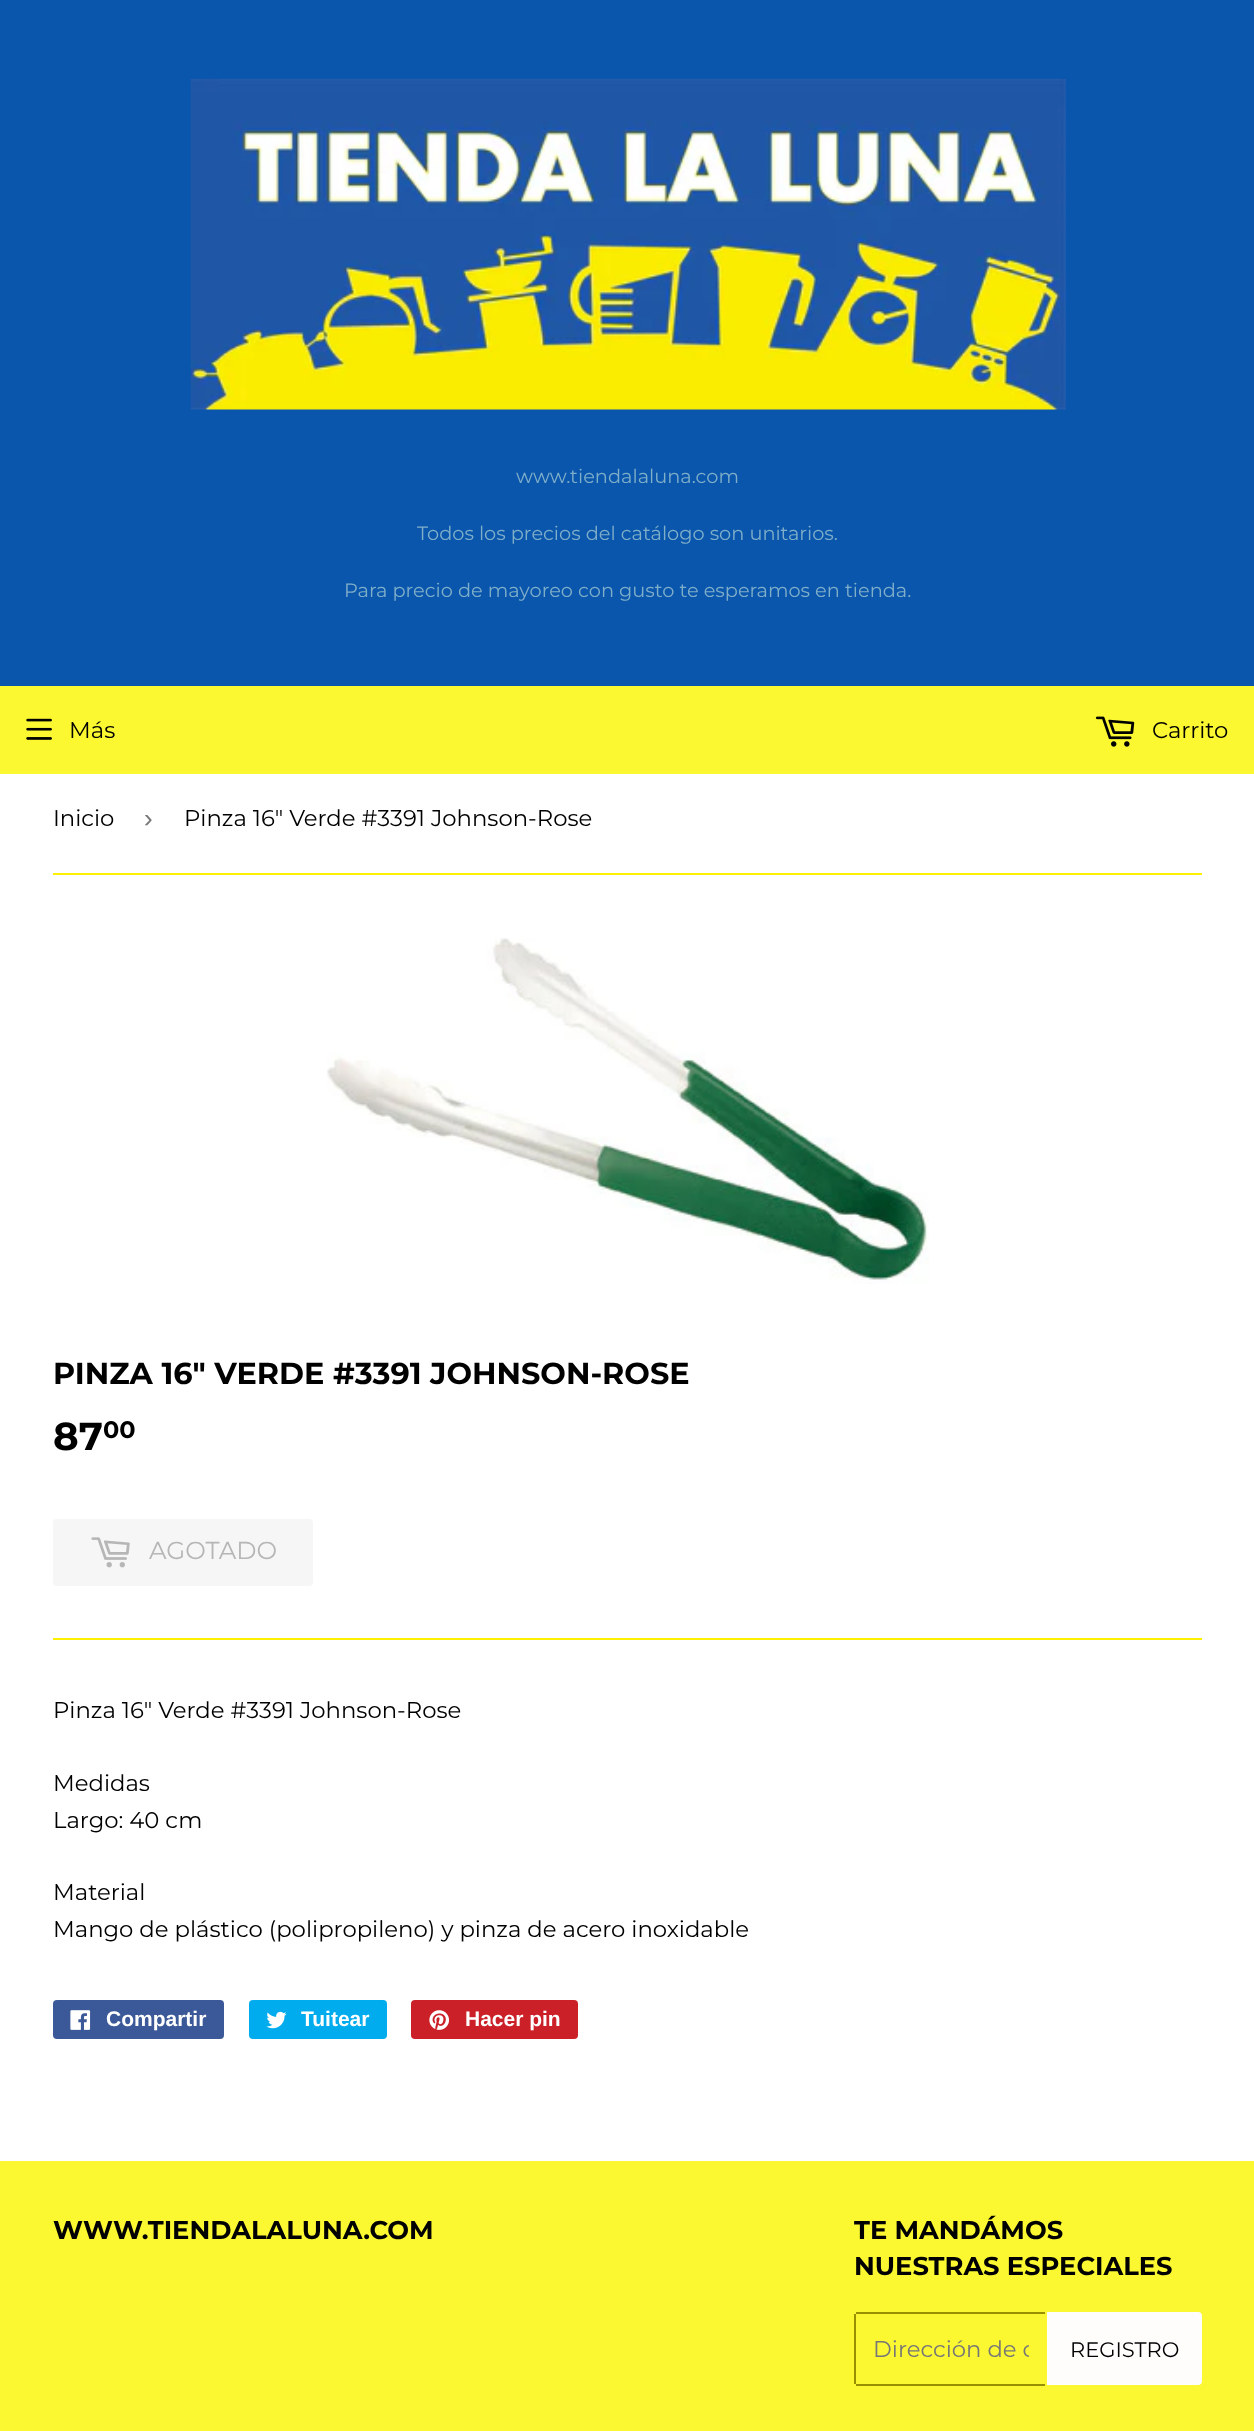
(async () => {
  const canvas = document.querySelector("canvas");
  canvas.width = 1254;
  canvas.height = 2431;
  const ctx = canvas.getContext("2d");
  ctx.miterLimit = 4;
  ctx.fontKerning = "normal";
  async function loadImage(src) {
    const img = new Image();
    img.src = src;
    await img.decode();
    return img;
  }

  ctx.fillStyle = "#ffffff";
  ctx.fillRect(0, 0, 1254, 2431);
  ctx.fillStyle = "#0956ac";
  ctx.fillRect(0, 0, 1254, 686);
  ctx.drawImage(await loadImage("img/1.png"), 190, 78, 876, 332);
  ctx.fillStyle = "#fbf832";
  ctx.fillRect(0, 686, 1254, 88);
  ctx.drawImage(await loadImage("img/2.png"), 26, 718, 26, 22);
  ctx.drawImage(await loadImage("img/3.png"), 1095, 716, 40, 31);
  ctx.fillStyle = "#fef000";
  ctx.fillRect(53, 873, 1149, 2);
  ctx.drawImage(await loadImage("img/4.png"), 327, 938, 602, 346);
  ctx.fillStyle = "#f6f6f6";
  ctx.beginPath();
  ctx.roundRect(53, 1519, 260, 67, 4);
  ctx.fill();
  ctx.drawImage(await loadImage("img/5.png"), 91, 1537, 39, 31);
  ctx.fillStyle = "#fef000";
  ctx.fillRect(53, 1638, 1149, 2);
  ctx.fillStyle = "#3b5998";
  ctx.beginPath();
  ctx.roundRect(53, 2000, 171, 39, 4);
  ctx.fill();
  ctx.drawImage(await loadImage("img/6.png"), 70, 2010, 21, 20);
  ctx.fillStyle = "#00aced";
  ctx.beginPath();
  ctx.roundRect(249, 2000, 138, 39, 4);
  ctx.fill();
  ctx.drawImage(await loadImage("img/7.png"), 266, 2011, 21, 18);
  ctx.fillStyle = "#cb2027";
  ctx.beginPath();
  ctx.roundRect(411, 2000, 167, 39, 4);
  ctx.fill();
  ctx.drawImage(await loadImage("img/8.png"), 429, 2010, 20, 20);
  for (const [x, y, w, h, color] of [
    [0, 2161, 1254, 270, "#fbf832"],
    [856, 2312, 189, 2, "#989000"],
    [856, 2384, 189, 2, "#989000"],
    [854, 2314, 2, 70, "#989000"],
  ]) {
    ctx.fillStyle = color;
    ctx.fillRect(x, y, w, h);
  }
  ctx.fillStyle = "#fffcfc";
  ctx.beginPath();
  ctx.roundRect(1047, 2312, 155, 73, [0, 4, 4, 0]);
  ctx.fill();
  ctx.font = "19.35px Montserrat";
  ctx.fillStyle = "#7faec9";
  for (const [text, x, y] of [
    ["www.tiendalaluna.com", 516, 483],
    ["Todos los precios del catálogo son unitarios.", 417, 540],
    ["Para precio de mayoreo con gusto te esperamos en tienda.", 344, 597],
  ]) {
    ctx.fillText(text, x, y);
  }
  ctx.font = "22.75px Montserrat";
  ctx.fillStyle = "#000000";
  for (const [text, x, y] of [
    ["Más", 69, 738],
    ["Carrito", 1152, 738],
    ["Inicio", 53, 826],
  ]) {
    ctx.fillText(text, x, y);
  }
  ctx.font = "26px Liberation Sans";
  ctx.fillStyle = "#767676";
  ctx.fillText("›", 144, 827);
  ctx.font = "22.75px Montserrat";
  ctx.fillStyle = "#000000";
  ctx.fillText("Pinza 16\" Verde #3391 Johnson-Rose", 184, 826);
  ctx.font = "bold 30.3px Montserrat";
  ctx.fillText("PINZA 16\" VERDE #3391 JOHNSON-ROSE", 53, 1384);
  ctx.font = "bold 39px Montserrat";
  ctx.fillText("87", 53, 1450);
  ctx.font = "bold 24px Montserrat";
  ctx.fillText("00", 103, 1438);
  ctx.font = "24.5px Montserrat";
  ctx.fillStyle = "#b6b6b6";
  ctx.fillText("AGOTADO", 149, 1559);
  ctx.font = "22.75px Montserrat";
  ctx.fillStyle = "#000000";
  for (const [text, x, y] of [
    ["Pinza 16\" Verde #3391 Johnson-Rose", 53, 1718],
    ["Medidas", 53, 1791],
    ["Largo: 40 cm", 53, 1828],
    ["Material", 53, 1900],
    ["Mango de plástico (polipropileno) y pinza de acero inoxidable", 53, 1937],
  ]) {
    ctx.fillText(text, x, y);
  }
  ctx.font = "bold 21px Liberation Sans";
  ctx.fillStyle = "#ffffff";
  for (const [text, x, y] of [
    ["Compartir", 106, 2026],
    ["Tuitear", 301, 2026],
    ["Hacer pin", 465, 2026],
  ]) {
    ctx.fillText(text, x, y);
  }
  ctx.font = "bold 25.75px Montserrat";
  ctx.fillStyle = "#000000";
  for (const [text, x, y] of [
    ["WWW.TIENDALALUNA.COM", 53, 2239],
    ["TE MANDÁMOS", 854, 2239],
    ["NUESTRAS ESPECIALES", 854, 2275],
  ]) {
    ctx.fillText(text, x, y);
  }
  ctx.save();
  ctx.beginPath();
  ctx.rect(873, 2335, 156, 28);
  ctx.clip();
  ctx.font = "22.75px Montserrat";
  ctx.fillStyle = "#767676";
  ctx.fillText("Dirección de c", 873, 2357);
  ctx.restore();
  ctx.font = "21px Montserrat";
  ctx.fillText("REGISTRO", 1070, 2357);
})();
